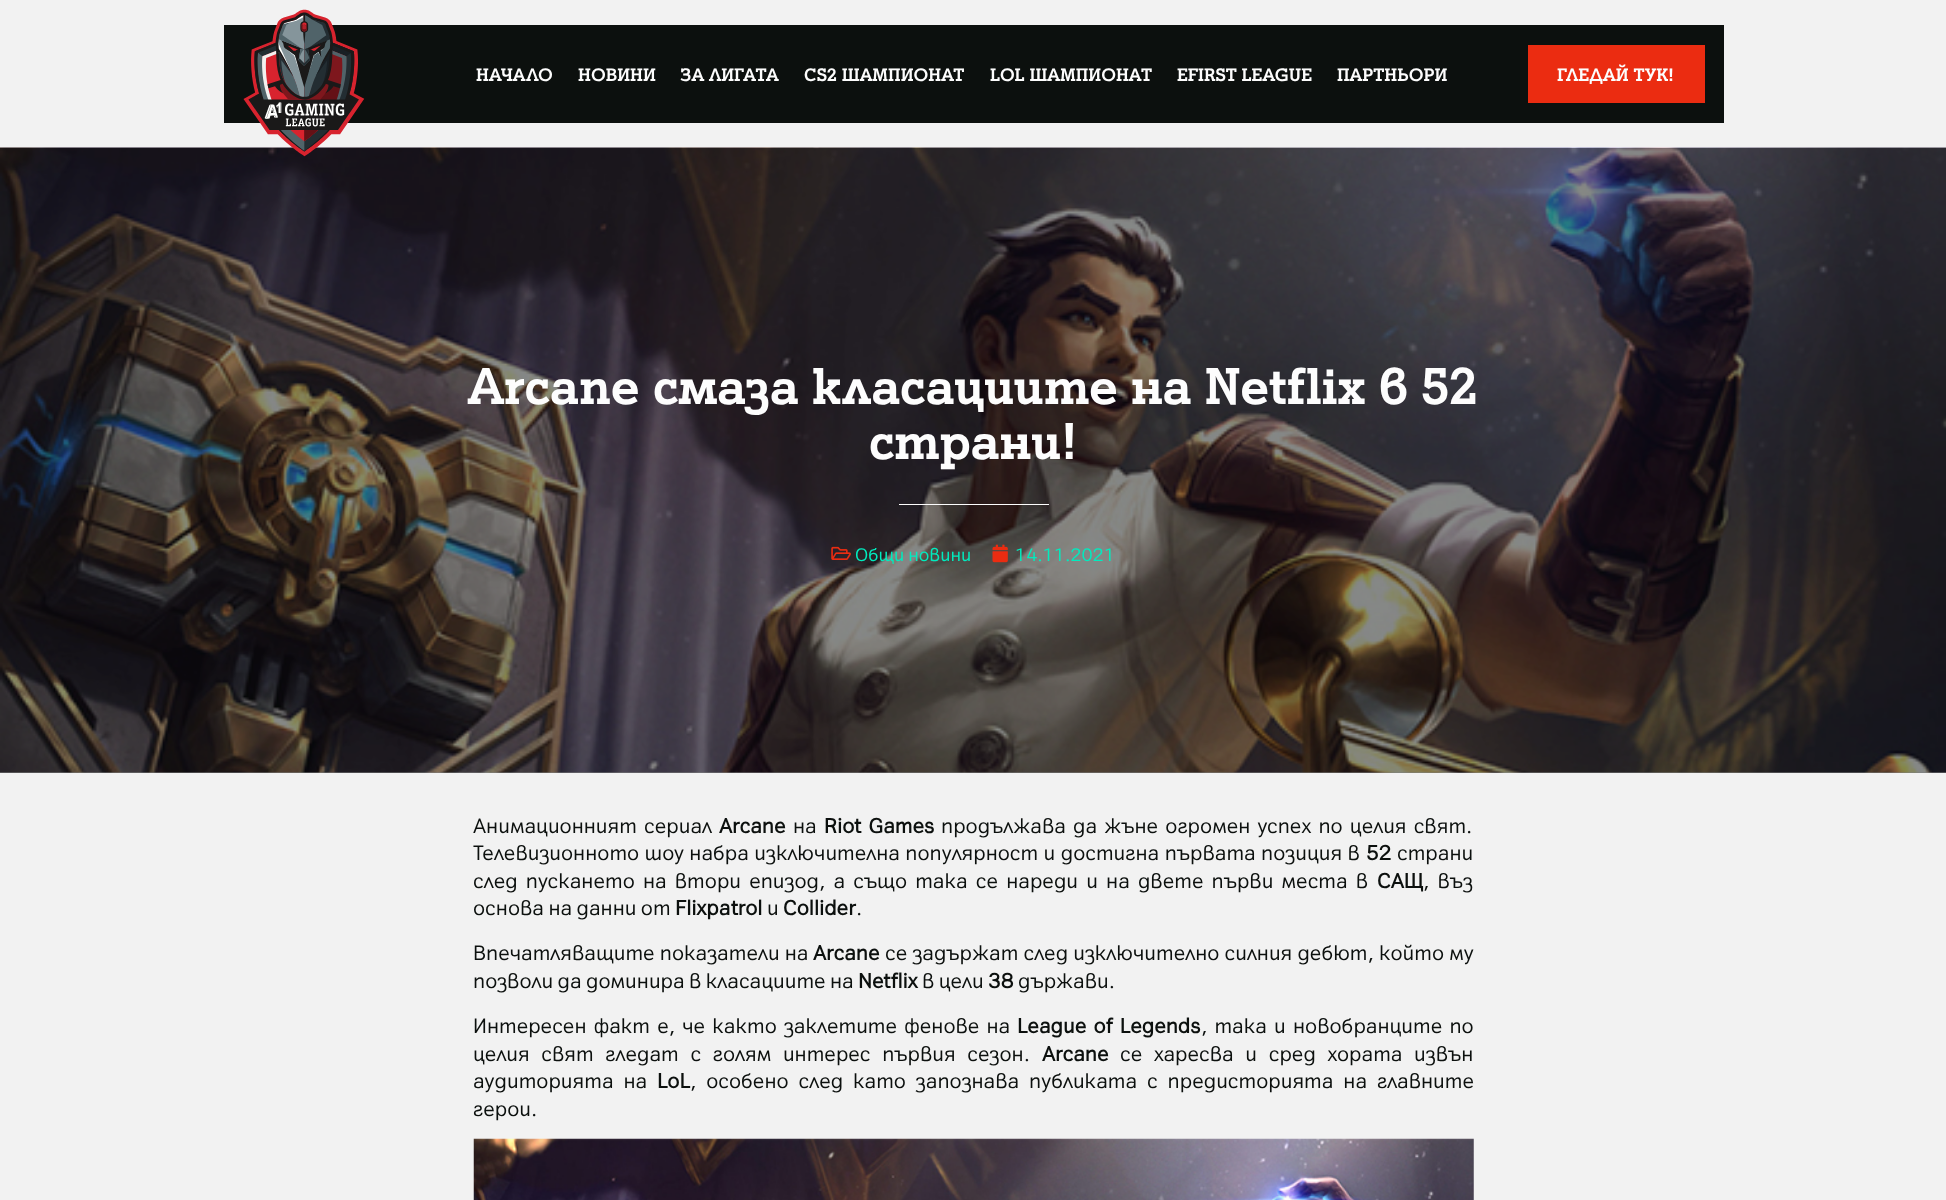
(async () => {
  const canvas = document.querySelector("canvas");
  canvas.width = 1946;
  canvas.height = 1200;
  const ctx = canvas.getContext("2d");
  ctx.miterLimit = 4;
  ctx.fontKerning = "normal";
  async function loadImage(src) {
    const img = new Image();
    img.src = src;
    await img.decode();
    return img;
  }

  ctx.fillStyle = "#f2f2f2";
  ctx.fillRect(0, 0, 1946, 1200);
  ctx.fillStyle = "#0c100e";
  ctx.fillRect(224, 25, 1500, 98);
  ctx.fillStyle = "#7f8180";
  ctx.fillRect(0, 772, 1946, 1);
  ctx.drawImage(await loadImage("img/2.png"), 0, 147, 1946, 626);
  ctx.drawImage(await loadImage("img/1.png"), 243, 9, 122, 148);
  ctx.fillStyle = "#eb2c11";
  ctx.fillRect(1528, 45, 177, 58);
  ctx.fillStyle = "#fdfdfd";
  ctx.fillRect(899, 504, 150, 1);
  ctx.drawImage(await loadImage("img/3.png"), 831, 546, 20, 14);
  ctx.drawImage(await loadImage("img/4.png"), 992, 544, 16, 19);
  ctx.drawImage(await loadImage("img/5.png"), 473, 1138, 1001, 62);
  ctx.font = "bold 17.5px 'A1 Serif'";
  for (const [text, x, y] of [
    ["НАЧАЛО", 476, 81],
    ["НОВИНИ", 578, 81],
    ["ЗА ЛИГАТА", 680, 81],
    ["CS2 ШАМПИОНАТ", 804, 81],
    ["LOL ШАМПИОНАТ", 990, 81],
    ["EFIRST LEAGUE", 1177, 81],
    ["ПАРТНЬОРИ", 1337, 81],
    ["ГЛЕДАЙ ТУК!", 1557, 81],
  ]) {
    ctx.fillText(text, x, y);
  }
  ctx.wordSpacing = "-0.5px";
  ctx.font = "bold 50px 'A1 Serif'";
  ctx.fillText("Arcane смаза класациите на Netflix в 52", 468, 404);
  ctx.wordSpacing = "0px";
  ctx.fillText("страни!", 869, 459);
  ctx.font = "17.5px 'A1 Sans'";
  ctx.fillStyle = "#00ecbf";
  ctx.fillText("Общи новини", 855, 561);
  ctx.fillText("14.11.2021", 1015, 561);
  ctx.wordSpacing = "2.75px";
  ctx.font = "20px 'A1 Sans'";
  ctx.fillStyle = "#0c100e";
  ctx.fillText("Анимационният сериал", 473, 833);
  ctx.wordSpacing = "0px";
  ctx.font = "bold 20px 'A1 Sans'";
  ctx.fillText("Arcane", 719, 833);
  ctx.font = "20px 'A1 Sans'";
  ctx.fillText("на", 793, 833);
  ctx.wordSpacing = "2.75px";
  ctx.font = "bold 20px 'A1 Sans'";
  ctx.fillText("Riot Games", 824, 833);
  ctx.font = "20px 'A1 Sans'";
  ctx.fillText("продължава да жъне огромен успех по целия свят.", 941, 833);
  ctx.wordSpacing = "1px";
  ctx.fillText("Телевизионното шоу набра изключителна популярност и достигна първата позиция в", 473, 860);
  ctx.wordSpacing = "0px";
  ctx.font = "bold 20px 'A1 Sans'";
  ctx.fillText("52", 1366, 860);
  ctx.font = "20px 'A1 Sans'";
  ctx.fillText("страни", 1397, 860);
  ctx.wordSpacing = "3.75px";
  ctx.fillText("след пускането на втори епизод, а също така се нареди и на двете първи места в", 473, 888);
  ctx.wordSpacing = "0px";
  ctx.font = "bold 20px 'A1 Sans'";
  ctx.fillText("САЩ", 1377, 888);
  ctx.wordSpacing = "3.75px";
  ctx.font = "20px 'A1 Sans'";
  ctx.fillText(", въз", 1423, 888);
  ctx.wordSpacing = "0px";
  ctx.fillText("основа на данни от", 473, 915);
  ctx.font = "bold 20px 'A1 Sans'";
  ctx.fillText("Flixpatrol", 675, 915);
  ctx.font = "20px 'A1 Sans'";
  ctx.fillText("и", 767, 915);
  ctx.font = "bold 20px 'A1 Sans'";
  ctx.fillText("Collider", 783, 915);
  ctx.font = "20px 'A1 Sans'";
  ctx.fillText(".", 856, 915);
  ctx.wordSpacing = "0.75px";
  ctx.fillText("Впечатляващите показатели на", 473, 960);
  ctx.wordSpacing = "0px";
  ctx.font = "bold 20px 'A1 Sans'";
  ctx.fillText("Arcane", 813, 960);
  ctx.wordSpacing = "0.75px";
  ctx.font = "20px 'A1 Sans'";
  ctx.fillText("се задържат след изключително силния дебют, който му", 885, 960);
  ctx.wordSpacing = "0px";
  ctx.fillText("позволи да доминира в класациите на", 473, 988);
  ctx.font = "bold 20px 'A1 Sans'";
  ctx.fillText("Netflix", 858, 988);
  ctx.font = "20px 'A1 Sans'";
  ctx.fillText("в цели", 922, 988);
  ctx.font = "bold 20px 'A1 Sans'";
  ctx.fillText("38", 988, 988);
  ctx.font = "20px 'A1 Sans'";
  ctx.fillText("държави.", 1018, 988);
  ctx.wordSpacing = "2.75px";
  ctx.fillText("Интересен факт е, че както заклетите фенове на", 473, 1033);
  ctx.font = "bold 20px 'A1 Sans'";
  ctx.fillText("League of Legends", 1017, 1033);
  ctx.font = "20px 'A1 Sans'";
  ctx.fillText(", така и новобранците по", 1201, 1033);
  ctx.wordSpacing = "7.25px";
  ctx.fillText("целия свят гледат с голям интерес първия сезон.", 473, 1061);
  ctx.wordSpacing = "0px";
  ctx.font = "bold 20px 'A1 Sans'";
  ctx.fillText("Arcane", 1042, 1061);
  ctx.wordSpacing = "7.25px";
  ctx.font = "20px 'A1 Sans'";
  ctx.fillText("се харесва и сред хората извън", 1120, 1061);
  ctx.wordSpacing = "5.5px";
  ctx.fillText("аудиторията на", 473, 1088);
  ctx.wordSpacing = "0px";
  ctx.font = "bold 20px 'A1 Sans'";
  ctx.fillText("LoL", 657, 1088);
  ctx.wordSpacing = "5.5px";
  ctx.font = "20px 'A1 Sans'";
  ctx.fillText(", особено след като запознава публиката с предисторията на главните", 690, 1088);
  ctx.wordSpacing = "0px";
  ctx.fillText("герои.", 473, 1116);
})();
